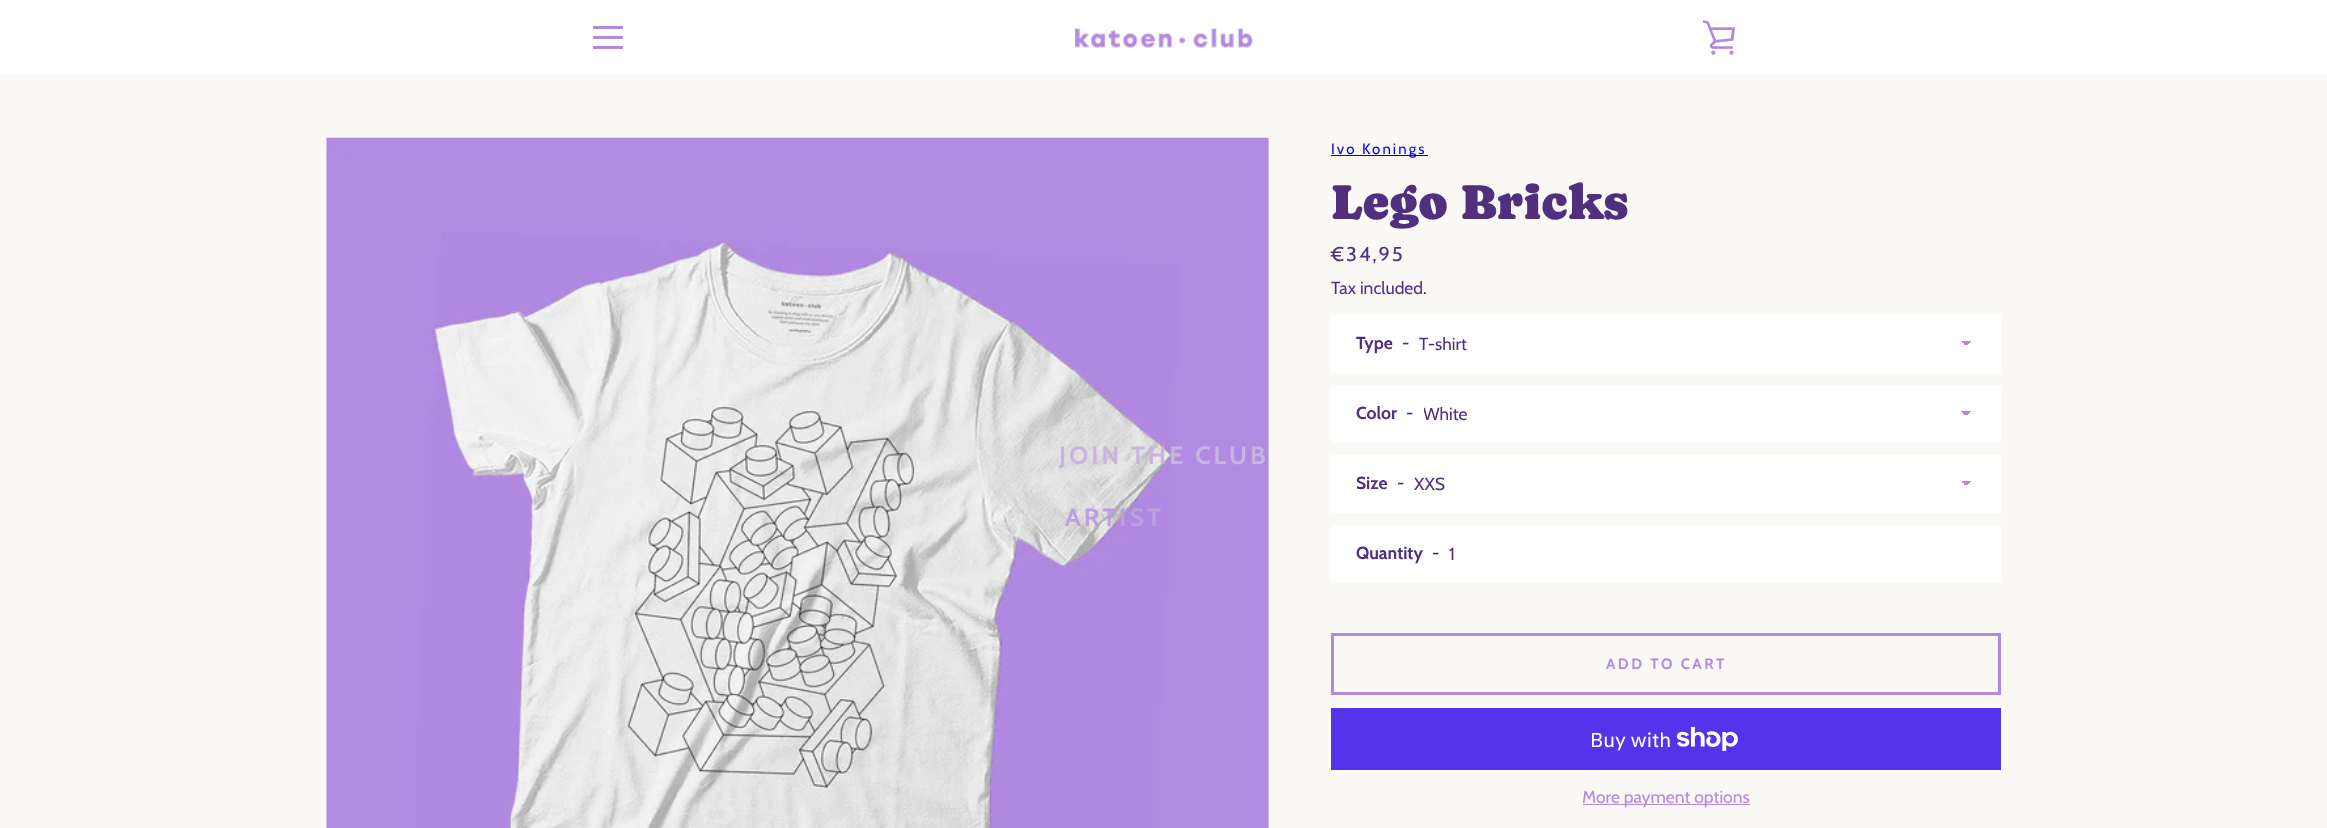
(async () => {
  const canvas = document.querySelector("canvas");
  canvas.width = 2327;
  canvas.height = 828;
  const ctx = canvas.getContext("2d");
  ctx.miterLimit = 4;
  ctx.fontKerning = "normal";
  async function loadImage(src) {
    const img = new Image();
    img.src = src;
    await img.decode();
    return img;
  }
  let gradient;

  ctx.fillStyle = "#faf9f6";
  ctx.fillRect(0, 0, 2327, 828);
  ctx.fillStyle = "#ffffff";
  ctx.fillRect(0, 0, 2327, 75);
  ctx.drawImage(await loadImage("img/1.png"), 1075, 28, 178, 20);
  ctx.drawImage(await loadImage("img/2.png"), 1703, 20, 32, 35);
  for (const [x, y, w, h, color] of [
    [593, 26, 30, 3, "#b289e0"],
    [593, 36, 30, 3, "#b289e0"],
    [593, 46, 30, 3, "#b289e0"],
  ]) {
    ctx.fillStyle = color;
    ctx.fillRect(x, y, w, h);
  }
  ctx.drawImage(await loadImage("img/3.png"), 326, 137, 943, 691);
  ctx.fillStyle = "#0000ee";
  ctx.fillRect(1331, 155, 97, 1);
  ctx.fillStyle = "#ffffff";
  ctx.fillRect(1331, 315, 670, 58);
  gradient = ctx.createLinearGradient(1966, 341, 1971, 346);
  gradient.addColorStop(0.5, "#b289e0");
  gradient.addColorStop(0.5, "#ffffff");
  ctx.fillStyle = gradient;
  ctx.fillRect(1966, 341, 5, 4);
  gradient = ctx.createLinearGradient(1961, 346, 1966, 341);
  gradient.addColorStop(0.5, "#ffffff");
  gradient.addColorStop(0.5, "#b289e0");
  ctx.fillStyle = gradient;
  ctx.fillRect(1961, 341, 5, 4);
  ctx.fillStyle = "#ffffff";
  ctx.fillRect(1331, 385, 670, 58);
  gradient = ctx.createLinearGradient(1966, 411, 1971, 416);
  gradient.addColorStop(0.5, "#b289e0");
  gradient.addColorStop(0.5, "#ffffff");
  ctx.fillStyle = gradient;
  ctx.fillRect(1966, 411, 5, 4);
  gradient = ctx.createLinearGradient(1961, 416, 1966, 411);
  gradient.addColorStop(0.5, "#ffffff");
  gradient.addColorStop(0.5, "#b289e0");
  ctx.fillStyle = gradient;
  ctx.fillRect(1961, 411, 5, 4);
  ctx.fillStyle = "#ffffff";
  ctx.fillRect(1331, 455, 670, 58);
  gradient = ctx.createLinearGradient(1966, 481, 1971, 486);
  gradient.addColorStop(0.5, "#b289e0");
  gradient.addColorStop(0.5, "#ffffff");
  ctx.fillStyle = gradient;
  ctx.fillRect(1966, 481, 5, 4);
  gradient = ctx.createLinearGradient(1961, 486, 1966, 481);
  gradient.addColorStop(0.5, "#ffffff");
  gradient.addColorStop(0.5, "#b289e0");
  ctx.fillStyle = gradient;
  ctx.fillRect(1961, 481, 5, 4);
  ctx.fillStyle = "#ffffff";
  ctx.fillRect(1331, 525, 670, 58);
  ctx.strokeStyle = "#b289e0";
  ctx.lineWidth = 3;
  ctx.strokeRect(1332.5, 634.5, 667, 59);
  ctx.fillStyle = "#5433eb";
  ctx.fillRect(1331, 708, 670, 62);
  ctx.drawImage(await loadImage("img/4.png"), 1676, 726, 62, 25);
  ctx.fillStyle = "#b289e0";
  ctx.fillRect(1583, 804, 167, 1);
  ctx.letterSpacing = "3.1px";
  ctx.font = "bold 25px Cabin";
  ctx.fillStyle = "#c8b5df";
  ctx.fillText("JOIN THE CLUB", 1059, 464);
  ctx.fillStyle = "#bca0de";
  ctx.fillText("ARTIST", 1065, 526);
  ctx.letterSpacing = "2.1px";
  ctx.font = "15px Cabin";
  ctx.fillStyle = "#0000ee";
  ctx.fillText("Ivo Konings", 1331, 154);
  ctx.letterSpacing = "0px";
  ctx.font = "50px Caprasimo";
  ctx.fillStyle = "#502f7e";
  ctx.fillText("Lego Bricks", 1331, 219);
  ctx.letterSpacing = "2px";
  ctx.font = "20px Cabin";
  ctx.fillText("€34,95", 1331, 261);
  ctx.letterSpacing = "0px";
  ctx.font = "17.5px Cabin";
  ctx.fillText("Tax included.", 1331, 294);
  ctx.font = "bold 17.5px Cabin";
  ctx.fillText("Type", 1356, 349);
  ctx.fillText("-", 1402, 349);
  ctx.font = "17.5px Cabin";
  ctx.fillText("T-shirt", 1419, 350);
  ctx.font = "bold 17.5px Cabin";
  ctx.fillText("Color", 1356, 419);
  ctx.fillText("-", 1406, 419);
  ctx.save();
  ctx.beginPath();
  ctx.rect(1424, 399, 541, 30);
  ctx.clip();
  ctx.font = "17.5px Cabin";
  ctx.fillText("White", 1423, 420);
  ctx.restore();
  ctx.fillText("Size", 1356, 489);
  ctx.fillText("-", 1397, 489);
  ctx.font = "17.5px Cabin";
  ctx.fillText("XXS", 1414, 490);
  ctx.font = "bold 17.5px Cabin";
  ctx.fillText("Quantity", 1356, 559);
  ctx.fillText("-", 1432, 559);
  ctx.font = "17.5px Cabin";
  ctx.fillText("1", 1449, 560);
  ctx.letterSpacing = "2.5px";
  ctx.font = "bold 15px Cabin";
  ctx.fillStyle = "#b289e0";
  ctx.fillText("ADD TO CART", 1606, 669);
  ctx.letterSpacing = "0px";
  ctx.font = "20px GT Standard";
  ctx.fillStyle = "#ffffff";
  ctx.fillText("Buy with", 1590, 747);
  ctx.font = "17.5px Cabin";
  ctx.fillStyle = "#b289e0";
  ctx.fillText("More payment options", 1582, 803);
})();
